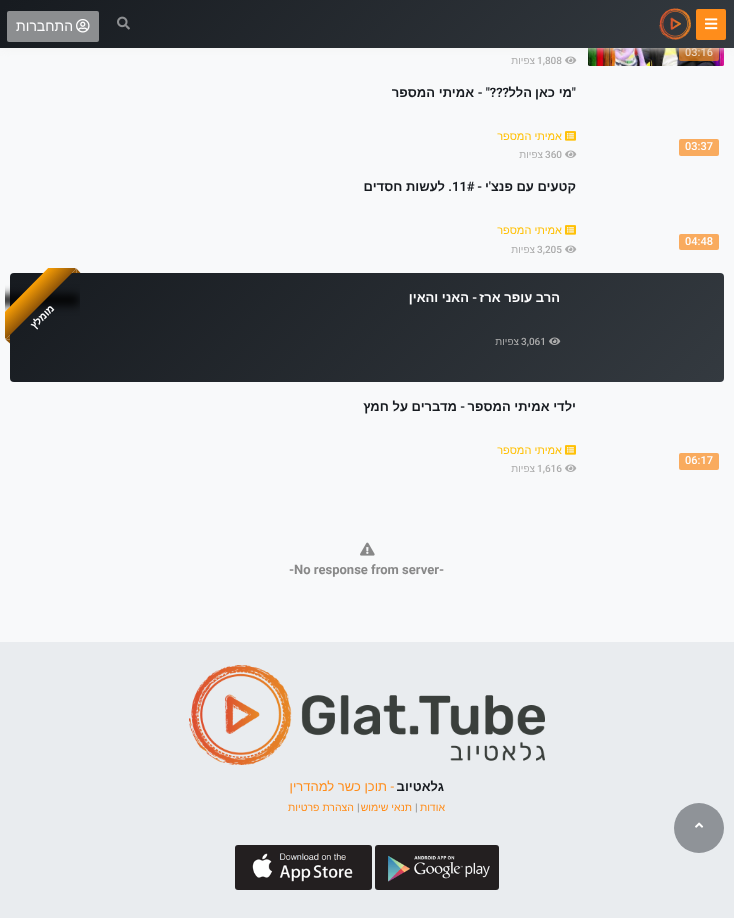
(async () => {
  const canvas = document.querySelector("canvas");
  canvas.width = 734;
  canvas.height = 918;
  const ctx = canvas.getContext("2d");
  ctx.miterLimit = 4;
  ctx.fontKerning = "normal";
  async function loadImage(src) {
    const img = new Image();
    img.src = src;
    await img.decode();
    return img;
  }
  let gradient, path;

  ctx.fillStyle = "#f8f9fa";
  ctx.fillRect(0, 0, 734, 918);
  ctx.drawImage(await loadImage("img/6.png"), 588, 64, 136, 2);
  ctx.drawImage(await loadImage("img/5.png"), 588, 48, 136, 18);
  ctx.fillStyle = "rgba(250, 138, 27, 0.7)";
  ctx.beginPath();
  ctx.roundRect(679, 45, 40, 16, 2);
  ctx.fill();
  ctx.drawImage(await loadImage("img/7.png"), 565, 56, 12, 8);
  ctx.fillStyle = "#f2f2f2";
  ctx.filter = "blur(5px)";
  ctx.beginPath();
  ctx.rect(0, 0, 734, 48);
  ctx.fill();
  ctx.filter = "none";
  gradient = ctx.createLinearGradient(171, -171, 563, 220);
  gradient.addColorStop(0.01, "#171b20");
  gradient.addColorStop(1, "#343a40");
  ctx.fillStyle = gradient;
  ctx.fillRect(0, 0, 734, 48);
  ctx.fillStyle = "#ff8d1b";
  ctx.beginPath();
  ctx.roundRect(696, 9, 30, 31, 2);
  ctx.fill();
  ctx.drawImage(await loadImage("img/1.png"), 705, 18, 13, 12);
  ctx.drawImage(await loadImage("img/2.png"), 659, 8, 32, 32);
  ctx.drawImage(await loadImage("img/3.png"), 117, 16, 13, 14);
  ctx.fillStyle = "#8c8e90";
  ctx.beginPath();
  ctx.roundRect(7, 11, 92, 31, 2);
  ctx.fill();
  ctx.drawImage(await loadImage("img/4.png"), 76, 19, 14, 14);
  ctx.fillStyle = "#f9ab5e";
  ctx.beginPath();
  ctx.roundRect(679, 139, 40, 17, 2);
  ctx.fill();
  ctx.drawImage(await loadImage("img/8.png"), 565, 131, 11, 10);
  ctx.drawImage(await loadImage("img/7.png"), 565, 150, 12, 8);
  ctx.beginPath();
  ctx.roundRect(679, 234, 40, 16, 2);
  ctx.fill();
  ctx.drawImage(await loadImage("img/8.png"), 565, 225, 11, 10);
  ctx.drawImage(await loadImage("img/7.png"), 565, 245, 12, 8);
  gradient = ctx.createLinearGradient(161, 122, 573, 533);
  gradient.addColorStop(0.01, "#171b20");
  gradient.addColorStop(1, "#343a40");
  ctx.fillStyle = gradient;
  ctx.beginPath();
  ctx.roundRect(10, 273, 714, 109, 4);
  ctx.fill();
  ctx.drawImage(await loadImage("img/9.png"), 549, 337, 12, 8);
  ctx.save();
  ctx.beginPath();
  ctx.rect(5, 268, 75, 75);
  ctx.clip();
  ctx.fillStyle = "#000000";
  ctx.filter = "blur(5px)";
  ctx.beginPath();
  ctx.rect(-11, 295, 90, 10);
  ctx.fill();
  ctx.filter = "none";
  ctx.restore();
  ctx.save();
  ctx.beginPath();
  ctx.rect(5, 268, 75, 75);
  ctx.clip();
  gradient = ctx.createLinearGradient(27, 290, 41, 304);
  gradient.addColorStop(0, "#f79e05");
  gradient.addColorStop(1, "#8f5408");
  ctx.fillStyle = gradient;
  path = new Path2D("M-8 325L62 254L76 269L6 339Z");
  ctx.fill(path);
  ctx.restore();
  ctx.fillStyle = "#8f5408";
  path = new Path2D("M72 273L76.5 268.5V273Z");
  ctx.fill(path);
  path = new Path2D("M76.5 268.5L80.5 273H76.5Z");
  ctx.fill(path);
  path = new Path2D("M5.5 339.5L10 335V339.5Z");
  ctx.fill(path);
  path = new Path2D("M10 343.5L5.5 339.5H10Z");
  ctx.fill(path);
  ctx.fillStyle = "#f9ab5e";
  ctx.beginPath();
  ctx.roundRect(679, 453, 40, 17, 2);
  ctx.fill();
  ctx.drawImage(await loadImage("img/8.png"), 565, 445, 11, 10);
  ctx.drawImage(await loadImage("img/7.png"), 565, 464, 12, 8);
  ctx.drawImage(await loadImage("img/10.png"), 360, 542, 15, 14);
  ctx.fillStyle = "#e9ecef";
  ctx.fillRect(0, 642, 734, 276);
  ctx.drawImage(await loadImage("img/11.png"), 189, 665, 356, 100);
  ctx.fillStyle = "#231f20";
  ctx.beginPath();
  ctx.roundRect(375, 845, 124, 45, 3);
  ctx.fill();
  ctx.beginPath();
  ctx.roundRect(235, 845, 137, 45, 3);
  ctx.fill();
  ctx.drawImage(await loadImage("img/12.png"), 388, 855, 103, 27);
  ctx.drawImage(await loadImage("img/13.png"), 252, 852, 101, 30);
  ctx.fillStyle = "#8f9398";
  ctx.beginPath();
  ctx.arc(699, 828, 25, 0, Math.PI * 2);
  ctx.fill();
  ctx.drawImage(await loadImage("img/14.png"), 695, 822, 9, 6);
  ctx.direction = "rtl";
  ctx.font = "14px Liberation Sans";
  ctx.fillStyle = "#fdfdfe";
  ctx.fillText("התחברות", 73, 31);
  ctx.direction = "ltr";
  ctx.font = "500 11px Roboto";
  ctx.fillStyle = "#ebd3bd";
  ctx.fillText("03:16", 685, 56);
  ctx.font = "500 10px Roboto";
  ctx.fillStyle = "#acacac";
  ctx.fillText("1,808", 537, 64);
  ctx.direction = "rtl";
  ctx.font = "10px Liberation Sans";
  ctx.fillText("צפיות", 535, 64);
  ctx.direction = "ltr";
  ctx.font = "500 11px Roboto";
  ctx.fillStyle = "#fdfdfe";
  ctx.fillText("03:37", 685, 150);
  ctx.direction = "rtl";
  ctx.font = "600 13px Roboto";
  ctx.fillStyle = "#171b20";
  ctx.fillText("\"", 576, 97);
  ctx.font = "bold 13px Liberation Sans";
  for (const [text, x, y] of [
    ["מי", 572, 97],
    ["כאן", 555, 97],
    ["הלל", 532, 97],
  ]) {
    ctx.fillText(text, x, y);
  }
  ctx.font = "600 13px Roboto";
  ctx.fillText("???\" -", 509, 97);
  ctx.font = "bold 13px Liberation Sans";
  ctx.fillText("אמיתי", 474, 97);
  ctx.fillText("המספר", 435, 97);
  ctx.font = "11px Liberation Sans";
  ctx.fillStyle = "#ffc107";
  ctx.fillText("אמיתי המספר", 562, 140);
  ctx.direction = "ltr";
  ctx.font = "500 10px Roboto";
  ctx.fillStyle = "#acacac";
  ctx.fillText("360", 545, 158);
  ctx.direction = "rtl";
  ctx.font = "10px Liberation Sans";
  ctx.fillText("צפיות", 543, 158);
  ctx.direction = "ltr";
  ctx.font = "500 11px Roboto";
  ctx.fillStyle = "#fdfdfe";
  ctx.fillText("04:48", 685, 245);
  ctx.direction = "rtl";
  ctx.font = "bold 13px Liberation Sans";
  ctx.fillStyle = "#171b20";
  ctx.fillText("קטעים עם פנצ", 576, 191);
  ctx.font = "600 13px Roboto";
  ctx.fillText("'", 491, 191);
  ctx.font = "bold 13px Liberation Sans";
  ctx.fillText("י", 489, 191);
  ctx.font = "600 13px Roboto";
  ctx.fillText("-", 482, 191);
  ctx.direction = "ltr";
  ctx.fillText("11#", 452, 191);
  ctx.direction = "rtl";
  ctx.font = "bold 13px Liberation Sans";
  ctx.fillText("לעשות חסדים", 445, 191);
  ctx.font = "600 13px Roboto";
  ctx.fillText(".", 452, 191);
  ctx.font = "11px Liberation Sans";
  ctx.fillStyle = "#ffc107";
  ctx.fillText("אמיתי המספר", 562, 234);
  ctx.direction = "ltr";
  ctx.font = "500 10px Roboto";
  ctx.fillStyle = "#acacac";
  ctx.fillText("3,205", 537, 253);
  ctx.direction = "rtl";
  ctx.font = "10px Liberation Sans";
  ctx.fillText("צפיות", 535, 253);
  ctx.font = "bold 13px Liberation Sans";
  ctx.fillStyle = "#fdfdfe";
  ctx.fillText("הרב עופר ארז", 560, 302);
  ctx.font = "600 13px Roboto";
  ctx.fillText("-", 477, 302);
  ctx.font = "bold 13px Liberation Sans";
  ctx.fillText("האני והאין", 469, 302);
  ctx.direction = "ltr";
  ctx.font = "500 10px Roboto";
  ctx.fillStyle = "#acacac";
  ctx.fillText("3,061", 521, 345);
  ctx.direction = "rtl";
  ctx.font = "10px Liberation Sans";
  ctx.fillText("צפיות", 519, 345);
  ctx.font = "bold 10px Liberation Sans";
  ctx.fillStyle = "#fdfdfe";
  ctx.save();
  ctx.translate(55, 309);
  ctx.rotate(-45 * Math.PI / 180);
  ctx.fillText("מומלץ", 0, 0);
  ctx.restore();
  ctx.direction = "ltr";
  ctx.font = "500 11px Roboto";
  ctx.fillText("06:17", 685, 464);
  ctx.direction = "rtl";
  ctx.font = "bold 13px Liberation Sans";
  ctx.fillStyle = "#171b20";
  ctx.fillText("ילדי אמיתי המספר", 576, 411);
  ctx.font = "600 13px Roboto";
  ctx.fillText("-", 465, 411);
  ctx.font = "bold 13px Liberation Sans";
  ctx.fillText("מדברים על חמץ", 457, 411);
  ctx.font = "11px Liberation Sans";
  ctx.fillStyle = "#ffc107";
  ctx.fillText("אמיתי המספר", 562, 454);
  ctx.direction = "ltr";
  ctx.font = "500 10px Roboto";
  ctx.fillStyle = "#acacac";
  ctx.fillText("1,616", 537, 472);
  ctx.direction = "rtl";
  ctx.font = "10px Liberation Sans";
  ctx.fillText("צפיות", 535, 472);
  ctx.direction = "ltr";
  ctx.font = "bold 13px Roboto";
  ctx.fillStyle = "#888888";
  ctx.fillText("-No response from server-", 289, 574);
  ctx.direction = "rtl";
  ctx.font = "bold 13px Liberation Sans";
  ctx.fillStyle = "#171b20";
  ctx.fillText("גלאטיוב", 444, 791);
  ctx.font = "13px Roboto";
  ctx.fillStyle = "#ff8d1b";
  ctx.fillText("-", 394, 791);
  ctx.font = "13px Liberation Sans";
  ctx.fillText("תוכן כשר למהדרין", 387, 791);
  ctx.font = "10.5px Liberation Sans";
  ctx.fillText("אודות", 445, 811);
  ctx.direction = "ltr";
  ctx.font = "10.5px Roboto";
  ctx.fillStyle = "#888888";
  ctx.fillText("|", 415, 811);
  ctx.direction = "rtl";
  ctx.font = "10.5px Liberation Sans";
  ctx.fillStyle = "#ff8d1b";
  ctx.fillText("תנאי שימוש", 412, 811);
  ctx.direction = "ltr";
  ctx.font = "10.5px Roboto";
  ctx.fillStyle = "#888888";
  ctx.fillText("|", 357, 811);
  ctx.direction = "rtl";
  ctx.font = "10.5px Liberation Sans";
  ctx.fillStyle = "#ff8d1b";
  ctx.fillText("הצהרת פרטיות", 354, 811);
})();
